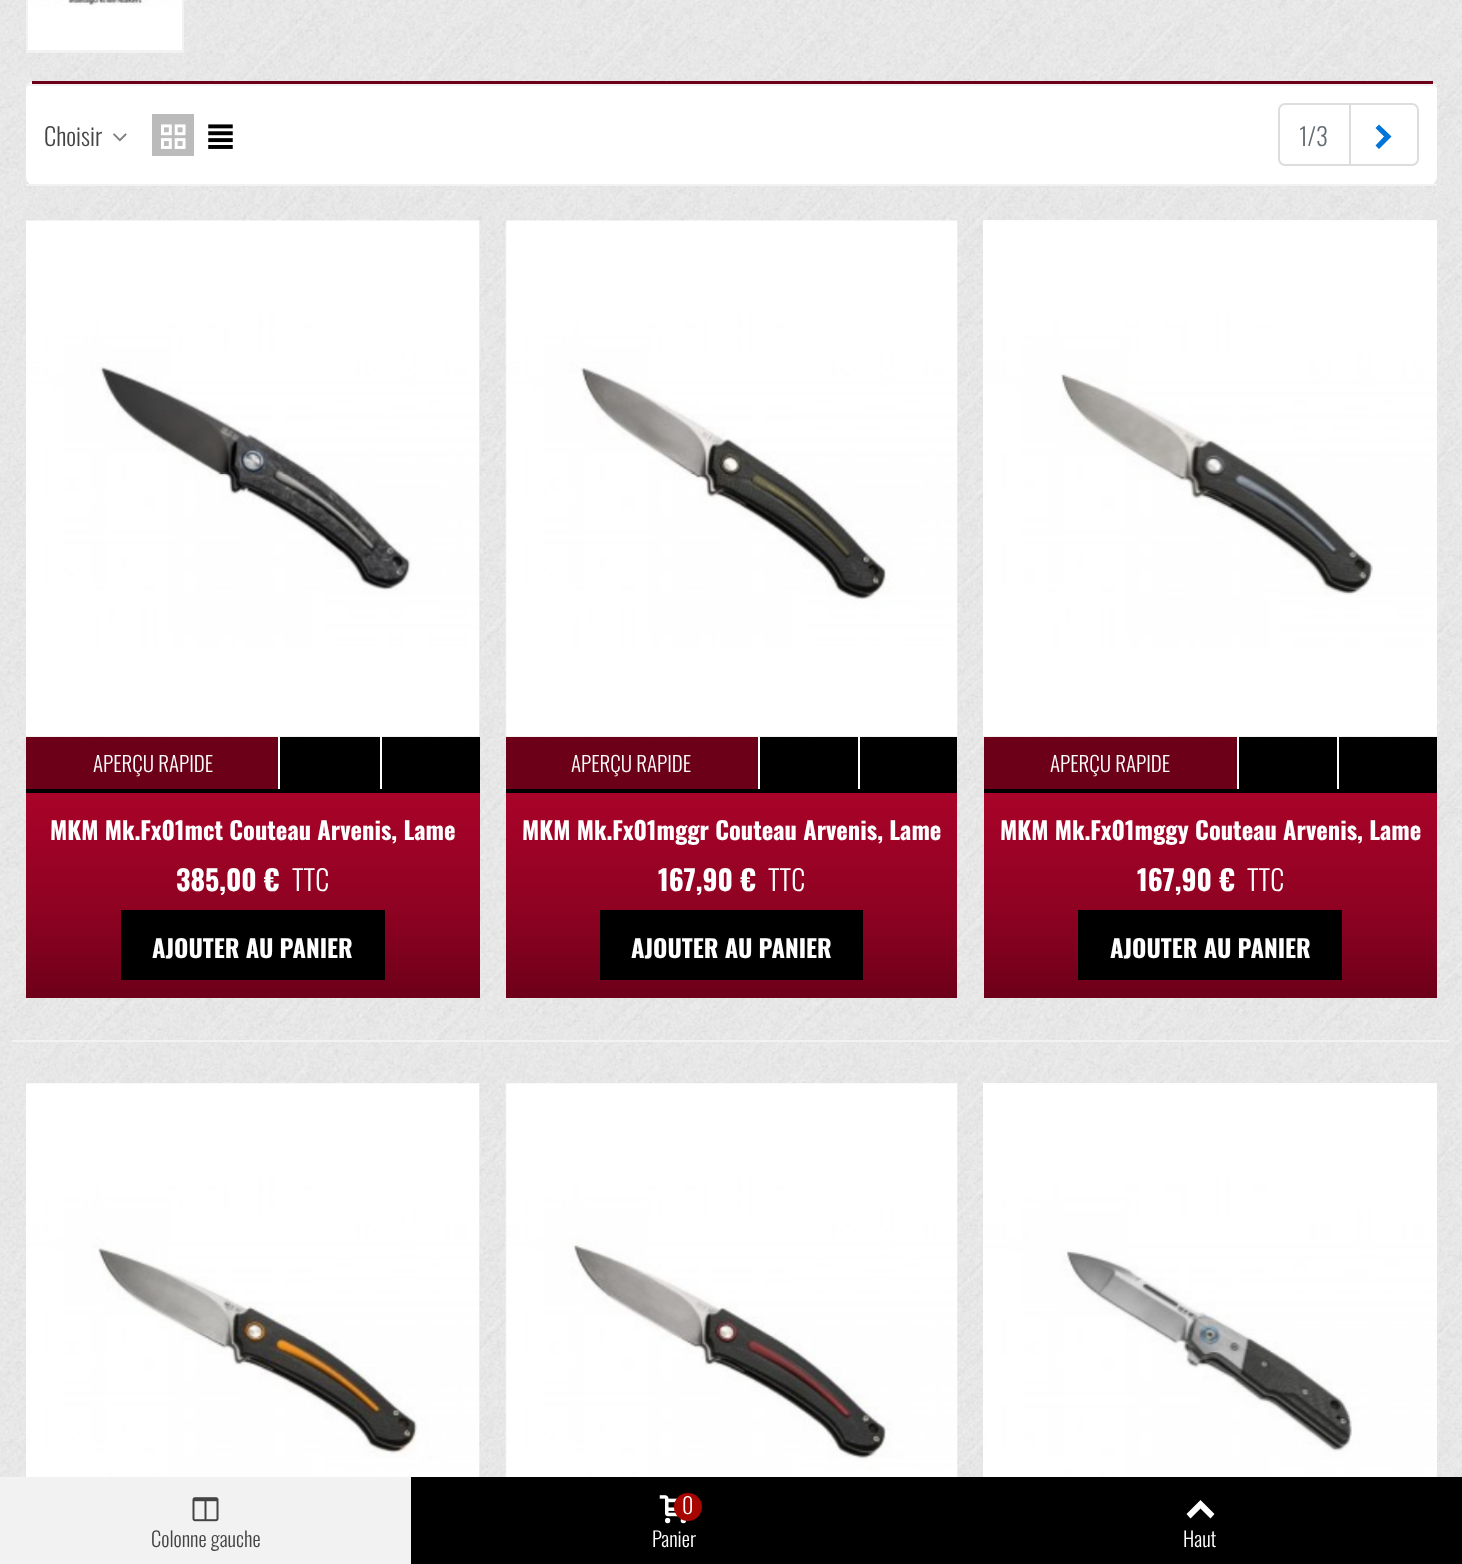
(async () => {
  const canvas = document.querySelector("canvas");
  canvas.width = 1462;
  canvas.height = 1564;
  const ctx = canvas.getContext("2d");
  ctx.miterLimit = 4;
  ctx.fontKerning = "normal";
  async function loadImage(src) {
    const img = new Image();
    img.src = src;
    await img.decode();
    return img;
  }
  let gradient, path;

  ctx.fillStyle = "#ffffff";
  ctx.fillRect(0, 0, 1462, 1564);
  ctx.drawImage(await loadImage("img/1.png"), 0, 0, 1462, 1477);
  ctx.strokeStyle = "#f2f2f2";
  ctx.lineWidth = 2;
  ctx.strokeRect(27, -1, 156, 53);
  ctx.drawImage(await loadImage("img/2.png"), 28, 0, 154, 51);
  ctx.beginPath();
  ctx.roundRect(26, 81, 1411, 105, 9);
  ctx.fill();
  for (const [x, y, w, h, color] of [
    [32, 81, 1401, 3, "#6d0019"],
    [26, 84, 1411, 2, "#f2f2f2"],
    [26, 184, 1411, 2, "#f2f2f2"],
  ]) {
    ctx.fillStyle = color;
    ctx.fillRect(x, y, w, h);
  }
  ctx.drawImage(await loadImage("img/3.png"), 113, 133, 14, 9);
  ctx.fillStyle = "#bbbbbb";
  ctx.fillRect(152, 114, 42, 42);
  ctx.drawImage(await loadImage("img/4.png"), 161, 124, 25, 25);
  ctx.drawImage(await loadImage("img/5.png"), 208, 124, 25, 25);
  ctx.beginPath();
  ctx.roundRect(1350, 104, 68, 61, [0, 6, 6, 0]);
  ctx.strokeStyle = "#dddddd";
  ctx.stroke();
  ctx.fillStyle = "#ffffff";
  ctx.beginPath();
  ctx.roundRect(1279, 104, 71, 61, [6, 0, 0, 6]);
  ctx.fill();
  ctx.stroke();
  ctx.fillStyle = "#0275d8";
  path = new Path2D("M1375.5 145.5L1384 136.5L1375.5 128L1379 124.5L1391.5 136.5L1379 149Z");
  ctx.fill(path);
  ctx.drawImage(await loadImage("img/6.png"), 26, 220, 454, 517);
  for (const [x, y, w, h, color] of [
    [26, 737, 454, 56, "#000000"],
    [26, 737, 252, 52, "#6d0019"],
    [278, 737, 2, 52, "#ffffff"],
    [380, 737, 2, 52, "#ffffff"],
  ]) {
    ctx.fillStyle = color;
    ctx.fillRect(x, y, w, h);
  }
  gradient = ctx.createLinearGradient(253, 793, 253, 998);
  gradient.addColorStop(0, "#a90329");
  gradient.addColorStop(0.56, "#8f0222");
  gradient.addColorStop(1, "#6d0019");
  ctx.fillStyle = gradient;
  ctx.fillRect(26, 793, 454, 205);
  ctx.fillStyle = "#000000";
  ctx.fillRect(121, 910, 264, 70);
  ctx.drawImage(await loadImage("img/7.png"), 505, 220, 453, 517);
  for (const [x, y, w, h, color] of [
    [506, 737, 451, 56, "#000000"],
    [506, 737, 252, 52, "#6d0019"],
    [758, 737, 2, 52, "#ffffff"],
    [858, 737, 2, 52, "#ffffff"],
  ]) {
    ctx.fillStyle = color;
    ctx.fillRect(x, y, w, h);
  }
  gradient = ctx.createLinearGradient(732, 793, 732, 998);
  gradient.addColorStop(0, "#a90329");
  gradient.addColorStop(0.56, "#8f0222");
  gradient.addColorStop(1, "#6d0019");
  ctx.fillStyle = gradient;
  ctx.fillRect(506, 793, 451, 205);
  ctx.fillStyle = "#000000";
  ctx.fillRect(600, 910, 263, 70);
  ctx.drawImage(await loadImage("img/8.png"), 983, 220, 454, 517);
  for (const [x, y, w, h, color] of [
    [984, 737, 453, 56, "#000000"],
    [984, 737, 253, 52, "#6d0019"],
    [1237, 737, 2, 52, "#ffffff"],
    [1337, 737, 2, 52, "#ffffff"],
  ]) {
    ctx.fillStyle = color;
    ctx.fillRect(x, y, w, h);
  }
  gradient = ctx.createLinearGradient(1210, 793, 1210, 998);
  gradient.addColorStop(0, "#a90329");
  gradient.addColorStop(0.56, "#8f0222");
  gradient.addColorStop(1, "#6d0019");
  ctx.fillStyle = gradient;
  ctx.fillRect(984, 793, 453, 205);
  ctx.fillStyle = "#000000";
  ctx.fillRect(1078, 910, 264, 70);
  ctx.fillStyle = "#f2f2f2";
  ctx.fillRect(12, 1040, 1437, 2);
  ctx.drawImage(await loadImage("img/9.png"), 26, 1083, 454, 394);
  ctx.drawImage(await loadImage("img/10.png"), 505, 1083, 453, 394);
  ctx.drawImage(await loadImage("img/11.png"), 983, 1083, 454, 394);
  ctx.fillRect(0, 1477, 411, 87);
  ctx.drawImage(await loadImage("img/12.png"), 192, 1497, 27, 25);
  ctx.fillStyle = "#000000";
  ctx.fillRect(411, 1477, 1051, 87);
  ctx.drawImage(await loadImage("img/13.png"), 659, 1495, 27, 29);
  ctx.fillStyle = "#a60500";
  ctx.beginPath();
  ctx.arc(688, 1507, 14, 0, Math.PI * 2);
  ctx.fill();
  ctx.fillStyle = "#ffffff";
  path = new Path2D("M1186.5 1514L1200.5 1500L1214.5 1514L1210.5 1518.5L1200.5 1508.5L1190.5 1518.5Z");
  ctx.fill(path);
  ctx.font = "300 24.5px Oswald";
  ctx.fillStyle = "#444444";
  ctx.fillText("Choisir", 44, 146);
  ctx.fillStyle = "#636c72";
  ctx.fillText("1/3", 1299, 146);
  ctx.font = "300 21px Oswald";
  ctx.fillStyle = "#ffffff";
  ctx.fillText("APERÇU RAPIDE", 93, 772);
  ctx.font = "bold 24.5px Oswald";
  ctx.fillText("MKM Mk.Fx01mct Couteau Arvenis, Lame", 50, 840);
  ctx.font = "bold 28px Oswald";
  ctx.fillText("385,00 €", 176, 891);
  ctx.font = "300 28px Oswald";
  ctx.fillText("TTC", 292, 891);
  ctx.font = "bold 24.5px Oswald";
  ctx.fillText("AJOUTER AU PANIER", 152, 958);
  ctx.font = "300 21px Oswald";
  ctx.fillText("APERÇU RAPIDE", 571, 772);
  ctx.font = "bold 24.5px Oswald";
  ctx.fillText("MKM Mk.Fx01mggr Couteau Arvenis, Lame", 522, 840);
  ctx.font = "bold 28px Oswald";
  ctx.fillText("167,90 €", 658, 891);
  ctx.font = "300 28px Oswald";
  ctx.fillText("TTC", 768, 891);
  ctx.font = "bold 24.5px Oswald";
  ctx.fillText("AJOUTER AU PANIER", 631, 958);
  ctx.font = "300 21px Oswald";
  ctx.fillText("APERÇU RAPIDE", 1050, 772);
  ctx.font = "bold 24.5px Oswald";
  ctx.fillText("MKM Mk.Fx01mggy Couteau Arvenis, Lame", 1000, 840);
  ctx.font = "bold 28px Oswald";
  ctx.fillText("167,90 €", 1137, 891);
  ctx.font = "300 28px Oswald";
  ctx.fillText("TTC", 1247, 891);
  ctx.font = "bold 24.5px Oswald";
  ctx.fillText("AJOUTER AU PANIER", 1110, 958);
  ctx.font = "300 20.5px Oswald";
  ctx.fillStyle = "#444444";
  ctx.fillText("Colonne gauche", 151, 1547);
  ctx.font = "300 22px Oswald";
  ctx.fillStyle = "#ffffff";
  ctx.fillText("0", 682, 1514);
  ctx.font = "300 20.5px Oswald";
  ctx.fillText("Panier", 652, 1547);
  ctx.fillText("Haut", 1183, 1547);
})();
